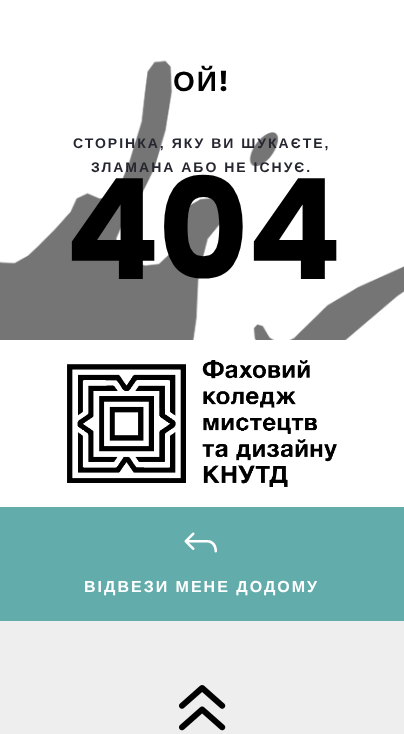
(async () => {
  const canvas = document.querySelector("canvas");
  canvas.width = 404;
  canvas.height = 734;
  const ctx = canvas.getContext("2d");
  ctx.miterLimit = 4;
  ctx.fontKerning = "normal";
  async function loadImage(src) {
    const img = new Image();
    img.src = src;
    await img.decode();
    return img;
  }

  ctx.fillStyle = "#ffffff";
  ctx.fillRect(0, 0, 404, 734);
  ctx.drawImage(await loadImage("img/1.png"), 0, 60, 404, 280);
  ctx.drawImage(await loadImage("img/2.png"), 67, 360, 270, 127);
  ctx.fillStyle = "#62acac";
  ctx.fillRect(0, 507, 404, 114);
  ctx.drawImage(await loadImage("img/3.png"), 184, 532, 33, 21);
  ctx.fillStyle = "#eeeeee";
  ctx.fillRect(0, 621, 404, 113);
  ctx.drawImage(await loadImage("img/4.png"), 179, 685, 47, 46);
  ctx.letterSpacing = "2px";
  ctx.font = "bold 28px Liberation Sans";
  ctx.fillStyle = "#000000";
  ctx.fillText("ОЙ", 173, 91);
  ctx.font = "bold 28px Poppins";
  ctx.fillText("!", 218, 91);
  ctx.font = "bold 14px Liberation Sans";
  ctx.fillStyle = "#252630";
  ctx.fillText("СТОРІНКА, ЯКУ ВИ ШУКАЄТЕ,", 73, 148);
  ctx.fillText("ЗЛАМАНА АБО НЕ ІСНУЄ.", 91, 172);
  ctx.letterSpacing = "-2px";
  ctx.font = "bold 140px Poppins";
  ctx.fillStyle = "#000000";
  ctx.fillText("404", 65, 279);
  ctx.letterSpacing = "2px";
  ctx.font = "bold 16px Liberation Sans";
  ctx.fillStyle = "#ffffff";
  ctx.fillText("ВІДВЕЗИ МЕНЕ ДОДОМУ", 84, 592);
})();
